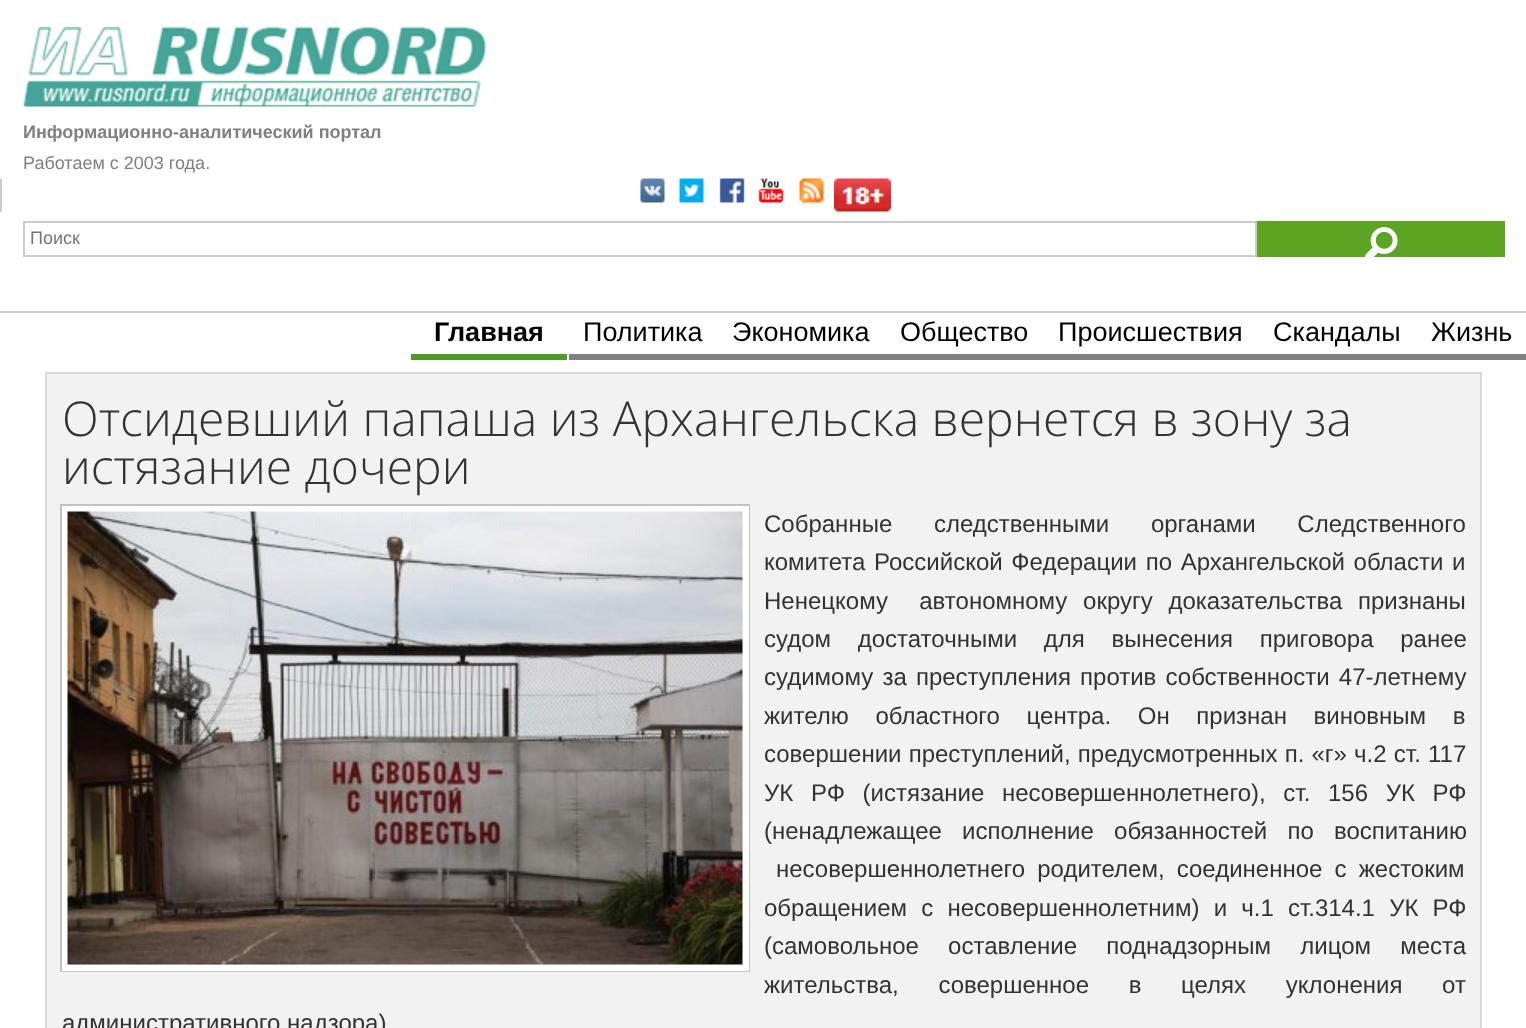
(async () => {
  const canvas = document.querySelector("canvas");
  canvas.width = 1526;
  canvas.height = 1028;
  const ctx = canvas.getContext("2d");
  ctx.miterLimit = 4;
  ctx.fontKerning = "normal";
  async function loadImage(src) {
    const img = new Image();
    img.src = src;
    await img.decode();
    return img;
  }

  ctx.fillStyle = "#ffffff";
  ctx.fillRect(0, 0, 1526, 1028);
  ctx.drawImage(await loadImage("img/1.png"), 22, 26, 465, 81);
  ctx.fillStyle = "#cccccc";
  ctx.fillRect(0, 311, 1526, 2);
  ctx.fillRect(0, 179, 2, 33);
  ctx.drawImage(await loadImage("img/2.png"), 640, 178, 25, 25);
  ctx.drawImage(await loadImage("img/3.png"), 679, 178, 25, 25);
  ctx.drawImage(await loadImage("img/4.png"), 719, 178, 26, 25);
  ctx.drawImage(await loadImage("img/5.png"), 758, 178, 26, 25);
  ctx.drawImage(await loadImage("img/6.png"), 799, 178, 25, 25);
  ctx.drawImage(await loadImage("img/7.png"), 834, 178, 57, 34);
  ctx.strokeStyle = "#cccccc";
  ctx.lineWidth = 2;
  ctx.strokeRect(24, 222, 1232, 34);
  ctx.fillStyle = "#5da423";
  ctx.fillRect(1257, 221, 248, 36);
  ctx.drawImage(await loadImage("img/8.png"), 1365, 227, 33, 30);
  ctx.fillStyle = "#4e9c28";
  ctx.fillRect(411, 354, 156, 6);
  ctx.fillStyle = "#808080";
  ctx.fillRect(569, 354, 957, 6);
  ctx.fillStyle = "#f2f2f2";
  ctx.beginPath();
  ctx.rect(46, 373, 1435, 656);
  ctx.fill();
  ctx.strokeStyle = "#d9d9d9";
  ctx.stroke();
  ctx.strokeStyle = "#c2c2c2";
  ctx.strokeRect(61, 505, 688, 466);
  ctx.strokeStyle = "#ffffff";
  ctx.lineWidth = 6;
  ctx.strokeRect(65, 509, 681, 459);
  ctx.drawImage(await loadImage("img/9.png"), 67, 511, 676, 454);
  ctx.font = "bold 18px Liberation Sans";
  ctx.fillStyle = "#808080";
  ctx.fillText("Информационно-аналитический портал", 23, 138);
  ctx.font = "18px Liberation Sans";
  ctx.fillText("Работаем с 2003 года.", 23, 169);
  ctx.fillStyle = "#757575";
  ctx.fillText("Поиск", 30, 244);
  ctx.font = "bold 27px Liberation Sans";
  ctx.fillStyle = "#000000";
  ctx.fillText("Главная", 434, 341);
  ctx.font = "27px Liberation Sans";
  for (const [text, x, y] of [
    ["Политика", 583, 341],
    ["Экономика", 732, 341],
    ["Общество", 900, 341],
    ["Происшествия", 1058, 341],
    ["Скандалы", 1273, 341],
    ["Жизнь", 1431, 341],
  ]) {
    ctx.fillText(text, x, y);
  }
  ctx.font = "300 48px Open Sans";
  ctx.fillStyle = "#333333";
  ctx.fillText("Отсидевший папаша из Архангельска вернется в зону за", 62, 436);
  ctx.fillText("истязание дочери", 62, 484);
  ctx.wordSpacing = "35px";
  ctx.font = "24px Liberation Sans";
  ctx.fillText("Собранные следственными органами Следственного", 764, 532);
  ctx.wordSpacing = "2px";
  ctx.fillText("комитета Российской Федерации по Архангельской области и", 764, 570);
  ctx.wordSpacing = "9px";
  ctx.fillText("Ненецкому  автономному округу доказательства признаны", 764, 609);
  ctx.wordSpacing = "20px";
  ctx.fillText("судом достаточными для вынесения приговора ранее", 764, 647);
  ctx.wordSpacing = "2.5px";
  ctx.fillText("судимому за преступления против собственности 47-летнему", 764, 685);
  ctx.wordSpacing = "20px";
  ctx.fillText("жителю областного центра. Он признан виновным в", 764, 724);
  ctx.wordSpacing = "0.5px";
  ctx.fillText("совершении преступлений, предусмотренных п. «г» ч.2 ст. 117", 764, 762);
  ctx.wordSpacing = "11px";
  ctx.fillText("УК РФ (истязание несовершеннолетнего), ст. 156 УК РФ", 764, 801);
  ctx.wordSpacing = "13.5px";
  ctx.fillText("(ненадлежащее исполнение обязанностей по воспитанию", 764, 839);
  ctx.wordSpacing = "5.5px";
  ctx.fillText("несовершеннолетнего родителем, соединенное с жестоким", 776, 877);
  ctx.wordSpacing = "7.5px";
  ctx.fillText("обращением с несовершеннолетним) и ч.1 ст.314.1 УК РФ", 764, 916);
  ctx.wordSpacing = "22.5px";
  ctx.fillText("(самовольное оставление поднадзорным лицом места", 764, 954);
  ctx.wordSpacing = "33px";
  ctx.fillText("жительства, совершенное в целях уклонения от", 764, 993);
  ctx.wordSpacing = "0px";
  ctx.fillText("административного надзора)", 62, 1031);
})();
